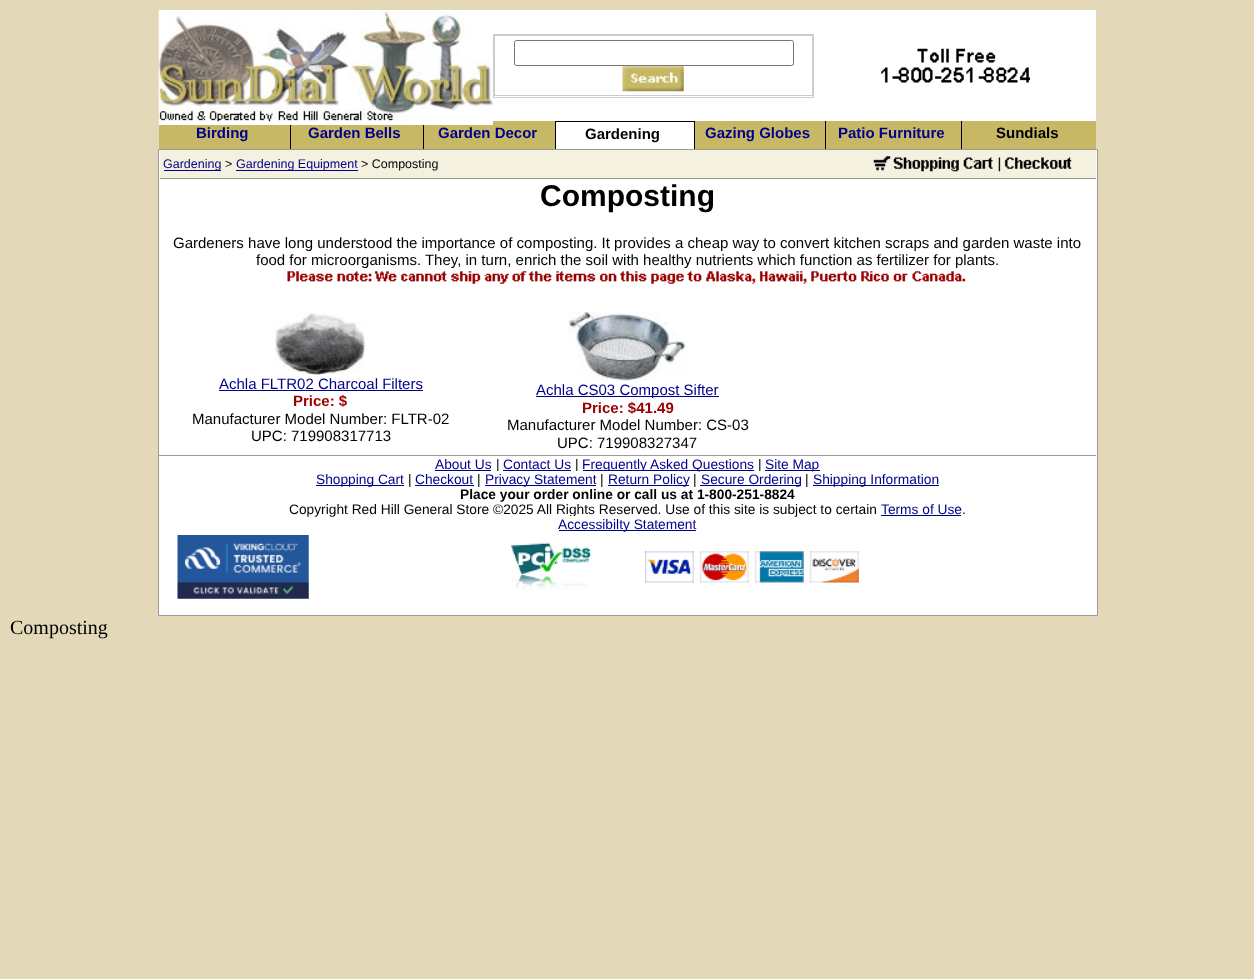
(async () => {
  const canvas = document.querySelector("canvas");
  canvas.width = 1254;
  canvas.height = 979;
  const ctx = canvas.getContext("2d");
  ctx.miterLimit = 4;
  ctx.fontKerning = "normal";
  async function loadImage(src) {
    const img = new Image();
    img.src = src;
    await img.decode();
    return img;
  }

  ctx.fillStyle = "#e3d9b8";
  ctx.fillRect(0, 0, 1254, 979);
  for (const [x, y, w, h, color] of [
    [492, 10, 1, 98, "#ffffff"],
    [290, 121, 1, 28, "#000000"],
    [423, 121, 1, 28, "#000000"],
    [424, 121, 131, 28, "#c7b865"],
    [159, 108, 334, 17, "#ffffff"],
  ]) {
    ctx.fillStyle = color;
    ctx.fillRect(x, y, w, h);
  }
  ctx.drawImage(await loadImage("img/1.png"), 158, 10, 335, 112);
  ctx.fillRect(493, 10, 603, 111);
  ctx.strokeStyle = "#cccccc";
  ctx.strokeRect(493.5, 34.5, 320, 63);
  ctx.strokeRect(494.5, 35.5, 318, 60);
  ctx.beginPath();
  ctx.roundRect(514.5, 40.5, 279, 25, 2);
  ctx.strokeStyle = "#767676";
  ctx.stroke();
  ctx.drawImage(await loadImage("img/2.png"), 622, 66, 62, 26);
  ctx.drawImage(await loadImage("img/3.png"), 881, 48, 149, 35);
  for (const [x, y, w, h, color] of [
    [159, 125, 131, 24, "#c7b865"],
    [291, 125, 132, 24, "#c7b865"],
    [555, 121, 1, 28, "#000000"],
    [556, 122, 138, 27, "#ffffff"],
    [556, 121, 139, 1, "#000000"],
    [694, 121, 1, 28, "#000000"],
    [695, 121, 130, 28, "#c7b865"],
    [825, 121, 1, 28, "#000000"],
    [826, 121, 270, 28, "#c7b865"],
    [961, 121, 1, 28, "#000000"],
  ]) {
    ctx.fillStyle = color;
    ctx.fillRect(x, y, w, h);
  }
  ctx.fillStyle = "#ffffff";
  ctx.beginPath();
  ctx.rect(158.5, 149.5, 939, 466);
  ctx.fill();
  ctx.strokeStyle = "#9b9b9b";
  ctx.stroke();
  for (const [x, y, w, h, color] of [
    [160, 150, 936, 28, "#f5f1e0"],
    [160, 178, 936, 1, "#9b9b9b"],
    [164, 170, 57, 1, "#00008b"],
    [236, 170, 122, 1, "#00008b"],
  ]) {
    ctx.fillStyle = color;
    ctx.fillRect(x, y, w, h);
  }
  ctx.drawImage(await loadImage("img/4.png"), 873, 156, 199, 16);
  ctx.drawImage(await loadImage("img/6.png"), 274, 312, 92, 63);
  ctx.fillRect(219, 390, 204, 1);
  ctx.drawImage(await loadImage("img/7.png"), 567, 311, 121, 70);
  for (const [x, y, w, h, color] of [
    [536, 396, 183, 1, "#00008b"],
    [159, 455, 937, 1, "#9b9b9b"],
    [435, 470, 56, 1, "#00008b"],
    [503, 470, 68, 1, "#00008b"],
    [583, 470, 171, 1, "#00008b"],
    [765, 470, 55, 1, "#00008b"],
    [316, 485, 88, 1, "#00008b"],
    [415, 485, 59, 1, "#00008b"],
    [485, 485, 111, 1, "#00008b"],
    [608, 485, 81, 1, "#00008b"],
    [700, 485, 101, 1, "#00008b"],
    [813, 485, 126, 1, "#00008b"],
    [881, 515, 80, 1, "#00008b"],
    [559, 530, 137, 1, "#00008b"],
  ]) {
    ctx.fillStyle = color;
    ctx.fillRect(x, y, w, h);
  }
  ctx.drawImage(await loadImage("img/8.png"), 177, 535, 132, 64);
  ctx.drawImage(await loadImage("img/9.png"), 510, 542, 82, 49);
  ctx.drawImage(await loadImage("img/10.png"), 645, 551, 214, 32);
  ctx.font = "bold 15px Liberation Sans";
  for (const [text, x, y] of [
    ["Birding", 196, 138],
    ["Garden Bells", 308, 138],
    ["Garden Decor", 438, 138],
  ]) {
    ctx.fillText(text, x, y);
  }
  ctx.fillStyle = "#000000";
  ctx.fillText("Gardening", 585, 139);
  ctx.fillStyle = "#00008b";
  ctx.fillText("Gazing Globes", 705, 138);
  ctx.fillText("Patio Furniture", 838, 138);
  ctx.fillStyle = "#000000";
  ctx.fillText("Sundials", 996, 138);
  ctx.font = "12.5px Liberation Sans";
  ctx.fillStyle = "#00008b";
  ctx.fillText("Gardening", 163, 168);
  ctx.fillStyle = "#000000";
  ctx.fillText(">", 225, 168);
  ctx.fillStyle = "#00008b";
  ctx.fillText("Gardening Equipment", 236, 168);
  ctx.fillStyle = "#000000";
  ctx.fillText("> Composting", 361, 168);
  ctx.font = "bold 30px Liberation Sans";
  ctx.fillText("Composting", 540, 206);
  ctx.font = "15px Liberation Sans";
  ctx.fillText("Gardeners have long understood the importance of composting. It provides a cheap way to convert kitchen scraps and garden waste into", 173, 248);
  ctx.fillText("food for microorganisms. They, in turn, enrich the soil with healthy nutrients which function as fertilizer for plants.", 256, 265);
  ctx.drawImage(await loadImage("img/5.png"), 287, 268, 679, 16);
  ctx.fillStyle = "#00008b";
  ctx.fillText("Achla FLTR02 Charcoal Filters", 219, 389);
  ctx.font = "bold 15px Liberation Sans";
  ctx.fillStyle = "#990000";
  ctx.fillText("Price: $", 293, 406);
  ctx.font = "15px Liberation Sans";
  ctx.fillStyle = "#000000";
  ctx.fillText("Manufacturer Model Number: FLTR-02", 192, 424);
  ctx.fillText("UPC: 719908317713", 251, 441);
  ctx.fillStyle = "#00008b";
  ctx.fillText("Achla CS03 Compost Sifter", 536, 395);
  ctx.font = "bold 15px Liberation Sans";
  ctx.fillStyle = "#990000";
  ctx.fillText("Price: $41.49", 582, 413);
  ctx.font = "15px Liberation Sans";
  ctx.fillStyle = "#000000";
  ctx.fillText("Manufacturer Model Number: CS-03", 507, 430);
  ctx.fillText("UPC: 719908327347", 557, 448);
  ctx.font = "13.75px Liberation Sans";
  ctx.fillStyle = "#00008b";
  ctx.fillText("About Us", 435, 469);
  ctx.fillStyle = "#000000";
  ctx.fillText("|", 496, 469);
  ctx.fillStyle = "#00008b";
  ctx.fillText("Contact Us", 503, 469);
  ctx.fillStyle = "#000000";
  ctx.fillText("|", 575, 469);
  ctx.fillStyle = "#00008b";
  ctx.fillText("Frequently", 582, 469);
  ctx.fillText("Asked Questions", 650, 469);
  ctx.fillStyle = "#000000";
  ctx.fillText("|", 758, 469);
  ctx.fillStyle = "#00008b";
  ctx.fillText("Site Map", 765, 469);
  ctx.fillText("Shopping Cart", 316, 484);
  ctx.fillStyle = "#000000";
  ctx.fillText("|", 408, 484);
  ctx.fillStyle = "#00008b";
  ctx.fillText("Checkout", 415, 484);
  ctx.fillStyle = "#000000";
  ctx.fillText("|", 477, 484);
  ctx.fillStyle = "#00008b";
  ctx.fillText("Privacy Statement", 485, 484);
  ctx.fillStyle = "#ffffff";
  ctx.fillRect(496, 471, 82, 1);
  ctx.fillStyle = "#000000";
  ctx.fillText("|", 600, 484);
  ctx.fillStyle = "#00008b";
  ctx.fillText("Return Policy", 608, 484);
  ctx.fillStyle = "#ffffff";
  ctx.fillRect(608, 471, 36, 1);
  ctx.fillStyle = "#000000";
  ctx.fillText("|", 693, 484);
  ctx.fillStyle = "#00008b";
  ctx.fillText("Secure Ordering", 701, 484);
  ctx.fillStyle = "#ffffff";
  ctx.fillRect(700, 471, 61, 1);
  ctx.fillStyle = "#000000";
  ctx.fillText("|", 805, 484);
  ctx.fillStyle = "#00008b";
  ctx.fillText("Shipping Information", 813, 484);
  ctx.fillStyle = "#ffffff";
  ctx.fillRect(813, 471, 2, 1);
  ctx.font = "bold 13.75px Liberation Sans";
  ctx.fillStyle = "#000000";
  ctx.fillText("Place your order online or call us at 1-800-251-8824", 460, 499);
  ctx.font = "13.75px Liberation Sans";
  ctx.fillText("Copyright Red Hill General Store ©2025 All Rights Reserved. Use of this site is subject to certain", 289, 514);
  ctx.fillStyle = "#00008b";
  ctx.fillText("Terms of Use", 881, 514);
  ctx.fillStyle = "#000000";
  ctx.fillText(".", 962, 514);
  ctx.fillStyle = "#00008b";
  ctx.fillText("Accessibilty Statement", 558, 529);
  ctx.fillStyle = "#ffffff";
  ctx.fillRect(570, 516, 6, 1);
  ctx.font = "20px Liberation Serif";
  ctx.fillStyle = "#000000";
  ctx.fillText("Composting", 10, 634);
})();
